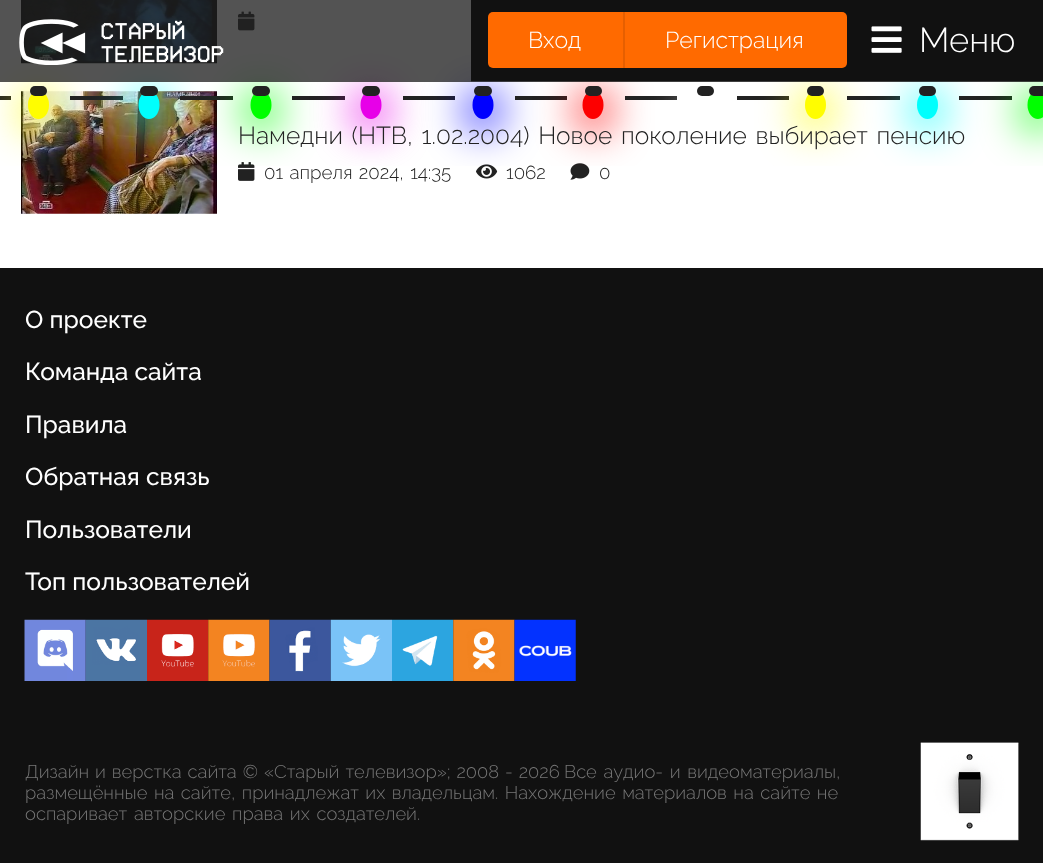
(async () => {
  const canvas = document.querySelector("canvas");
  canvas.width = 1043;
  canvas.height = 863;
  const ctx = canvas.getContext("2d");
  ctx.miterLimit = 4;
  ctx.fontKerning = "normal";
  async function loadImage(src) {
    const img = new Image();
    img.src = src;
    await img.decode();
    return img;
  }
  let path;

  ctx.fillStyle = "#ffffff";
  ctx.fillRect(0, 0, 1043, 863);
  ctx.fillStyle = "#222222";
  ctx.fillRect(0, 96, 11, 4);
  ctx.drawImage(await loadImage("img/3.png"), 21, 0, 196, 64);
  ctx.drawImage(await loadImage("img/5.png"), 21, 91, 196, 123);
  ctx.save();
  ctx.beginPath();
  ctx.rect(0, 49, 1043, 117);
  ctx.clip();
  ctx.fillStyle = "#fffd00";
  ctx.filter = "blur(21px)";
  ctx.beginPath();
  ctx.roundRect(23, 91, 31, 39, 15.5);
  ctx.fill();
  ctx.filter = "none";
  ctx.restore();
  ctx.fillStyle = "#fffd00";
  ctx.beginPath();
  ctx.ellipse(38.5, 105, 10.5, 14, 0, 0, Math.PI * 2);
  ctx.fill();
  ctx.fillStyle = "#222222";
  ctx.beginPath();
  ctx.roundRect(30, 86, 17, 10, 5);
  ctx.fill();
  ctx.fillRect(70, 96, 53, 4);
  ctx.save();
  ctx.beginPath();
  ctx.rect(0, 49, 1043, 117);
  ctx.clip();
  ctx.fillStyle = "#00fffd";
  ctx.filter = "blur(21px)";
  ctx.beginPath();
  ctx.roundRect(133, 91, 32, 39, 16);
  ctx.fill();
  ctx.filter = "none";
  ctx.restore();
  ctx.fillStyle = "#00fffd";
  ctx.beginPath();
  ctx.ellipse(149, 105, 10.5, 14, 0, 0, Math.PI * 2);
  ctx.fill();
  ctx.fillStyle = "#222222";
  ctx.beginPath();
  ctx.roundRect(140, 86, 18, 10, 5);
  ctx.fill();
  ctx.fillRect(180, 96, 53, 4);
  ctx.drawImage(await loadImage("img/4.png"), 238, 11, 17, 20);
  ctx.drawImage(await loadImage("img/6.png"), 238, 162, 17, 19);
  ctx.save();
  ctx.beginPath();
  ctx.rect(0, 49, 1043, 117);
  ctx.clip();
  ctx.fillStyle = "#00ff00";
  ctx.filter = "blur(21px)";
  ctx.beginPath();
  ctx.roundRect(245, 91, 32, 39, 16);
  ctx.fill();
  ctx.filter = "none";
  ctx.restore();
  ctx.fillStyle = "#00ff00";
  ctx.beginPath();
  ctx.ellipse(261, 105, 10.5, 14, 0, 0, Math.PI * 2);
  ctx.fill();
  ctx.fillStyle = "#222222";
  ctx.beginPath();
  ctx.roundRect(252, 86, 18, 10, 5);
  ctx.fill();
  ctx.fillRect(292, 96, 53, 4);
  ctx.save();
  ctx.beginPath();
  ctx.rect(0, 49, 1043, 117);
  ctx.clip();
  ctx.fillStyle = "#e700e8";
  ctx.filter = "blur(21px)";
  ctx.beginPath();
  ctx.roundRect(355, 91, 32, 39, 16);
  ctx.fill();
  ctx.filter = "none";
  ctx.restore();
  ctx.fillStyle = "#e700e8";
  ctx.beginPath();
  ctx.ellipse(371, 105, 10.5, 14, 0, 0, Math.PI * 2);
  ctx.fill();
  ctx.fillStyle = "#222222";
  ctx.beginPath();
  ctx.roundRect(362, 86, 18, 10, 5);
  ctx.fill();
  ctx.fillRect(403, 96, 52, 4);
  ctx.drawImage(await loadImage("img/7.png"), 476, 164, 22, 15);
  ctx.save();
  ctx.beginPath();
  ctx.rect(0, 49, 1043, 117);
  ctx.clip();
  ctx.fillStyle = "#0000ff";
  ctx.filter = "blur(21px)";
  ctx.beginPath();
  ctx.roundRect(467, 91, 32, 39, 16);
  ctx.fill();
  ctx.filter = "none";
  ctx.restore();
  ctx.fillStyle = "#0000ff";
  ctx.beginPath();
  ctx.ellipse(483, 105, 10.5, 14, 0, 0, Math.PI * 2);
  ctx.fill();
  ctx.fillStyle = "#222222";
  ctx.beginPath();
  ctx.roundRect(474, 86, 18, 10, 5);
  ctx.fill();
  ctx.fillRect(515, 96, 52, 4);
  ctx.drawImage(await loadImage("img/8.png"), 570, 163, 20, 17);
  ctx.save();
  ctx.beginPath();
  ctx.rect(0, 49, 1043, 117);
  ctx.clip();
  ctx.fillStyle = "#fd0000";
  ctx.filter = "blur(21px)";
  ctx.beginPath();
  ctx.roundRect(578, 91, 31, 39, 15.5);
  ctx.fill();
  ctx.filter = "none";
  ctx.restore();
  ctx.fillStyle = "#fd0000";
  ctx.beginPath();
  ctx.ellipse(593, 105, 10.5, 14, 0, 0, Math.PI * 2);
  ctx.fill();
  ctx.fillStyle = "#222222";
  ctx.beginPath();
  ctx.roundRect(585, 86, 17, 10, 5);
  ctx.fill();
  ctx.fillRect(625, 96, 52, 4);
  ctx.save();
  ctx.beginPath();
  ctx.rect(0, 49, 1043, 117);
  ctx.clip();
  path = new Path2D("M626 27H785V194H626ZM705 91C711 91 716 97.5 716 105C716 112.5 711 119 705 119C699.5 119 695 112.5 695 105C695 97.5 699.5 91 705 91Z");
  ctx.clip(path, "evenodd");
  ctx.fillStyle = "#ffffff";
  ctx.filter = "blur(21px)";
  ctx.beginPath();
  ctx.roundRect(690, 91, 31, 39, 15.5);
  ctx.fill();
  ctx.filter = "none";
  ctx.restore();
  ctx.beginPath();
  ctx.roundRect(697, 86, 17, 10, 5);
  ctx.fill();
  ctx.fillRect(737, 96, 52, 4);
  ctx.save();
  ctx.beginPath();
  ctx.rect(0, 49, 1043, 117);
  ctx.clip();
  ctx.fillStyle = "#fffd00";
  ctx.filter = "blur(21px)";
  ctx.beginPath();
  ctx.roundRect(800, 91, 31, 39, 15.5);
  ctx.fill();
  ctx.filter = "none";
  ctx.restore();
  ctx.fillStyle = "#fffd00";
  ctx.beginPath();
  ctx.ellipse(815.5, 105, 10.5, 14, 0, 0, Math.PI * 2);
  ctx.fill();
  ctx.fillStyle = "#222222";
  ctx.beginPath();
  ctx.roundRect(807, 86, 17, 10, 5);
  ctx.fill();
  ctx.fillRect(847, 96, 53, 4);
  ctx.save();
  ctx.beginPath();
  ctx.rect(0, 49, 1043, 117);
  ctx.clip();
  ctx.fillStyle = "#00fffd";
  ctx.filter = "blur(21px)";
  ctx.beginPath();
  ctx.roundRect(912, 91, 31, 39, 15.5);
  ctx.fill();
  ctx.filter = "none";
  ctx.restore();
  ctx.fillStyle = "#00fffd";
  ctx.beginPath();
  ctx.ellipse(927.5, 105, 10.5, 14, 0, 0, Math.PI * 2);
  ctx.fill();
  ctx.fillStyle = "#222222";
  ctx.beginPath();
  ctx.roundRect(919, 86, 17, 10, 5);
  ctx.fill();
  ctx.fillRect(959, 96, 53, 4);
  ctx.save();
  ctx.beginPath();
  ctx.rect(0, 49, 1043, 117);
  ctx.clip();
  ctx.fillStyle = "#00ff00";
  ctx.filter = "blur(21px)";
  ctx.beginPath();
  ctx.roundRect(1022, 91, 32, 39, 16);
  ctx.fill();
  ctx.filter = "none";
  ctx.restore();
  ctx.fillStyle = "#00ff00";
  ctx.beginPath();
  ctx.ellipse(1038, 105, 10.5, 14, 0, 0, Math.PI * 2);
  ctx.fill();
  ctx.fillStyle = "#222222";
  ctx.beginPath();
  ctx.roundRect(1029, 86, 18, 10, 5);
  ctx.fill();
  ctx.fillStyle = "rgba(0, 0, 0, 0.75)";
  ctx.fillRect(0, 0, 1043, 82);
  ctx.fillStyle = "rgba(255, 255, 255, 0.1)";
  ctx.fillRect(0, 0, 471, 82);
  ctx.drawImage(await loadImage("img/1.png"), 19, 19, 205, 46);
  ctx.fillStyle = "#111111";
  ctx.fillRect(471, 0, 572, 81);
  ctx.fillStyle = "#ff6a00";
  ctx.beginPath();
  ctx.roundRect(488, 12, 137, 56, [5, 0, 0, 5]);
  ctx.fill();
  ctx.fillStyle = "#e65f00";
  ctx.fillRect(623, 12, 2, 56);
  ctx.fillStyle = "#ff6a00";
  ctx.beginPath();
  ctx.roundRect(625, 12, 222, 56, [0, 5, 5, 0]);
  ctx.fill();
  ctx.drawImage(await loadImage("img/2.png"), 871, 26, 31, 27);
  ctx.fillStyle = "#111111";
  ctx.fillRect(0, 268, 1043, 595);
  ctx.drawImage(await loadImage("img/9.png"), 24, 619, 62, 62);
  ctx.drawImage(await loadImage("img/10.png"), 85, 619, 62, 62);
  ctx.drawImage(await loadImage("img/11.png"), 147, 619, 62, 62);
  ctx.drawImage(await loadImage("img/12.png"), 208, 619, 62, 62);
  ctx.drawImage(await loadImage("img/13.png"), 269, 619, 62, 62);
  ctx.drawImage(await loadImage("img/14.png"), 330, 619, 62, 62);
  ctx.drawImage(await loadImage("img/15.png"), 392, 619, 62, 62);
  ctx.drawImage(await loadImage("img/16.png"), 453, 619, 62, 62);
  ctx.drawImage(await loadImage("img/17.png"), 514, 619, 62, 62);
  ctx.drawImage(await loadImage("img/18.png"), 920, 742, 99, 99);
  ctx.font = "300 23px Raleway";
  ctx.fillStyle = "#ffffff";
  ctx.fillText("Вход", 528, 48);
  ctx.fillText("Регистрация", 665, 48);
  ctx.font = "300 34.5px Raleway";
  ctx.fillText("Меню", 919, 52);
  ctx.wordSpacing = "2.5px";
  ctx.font = "300 24.5px Raleway";
  ctx.fillStyle = "#222222";
  ctx.fillText("Намедни (НТВ, 1.02.2004) Новое поколение выбирает пенсию", 238, 144);
  ctx.wordSpacing = "1.5px";
  ctx.font = "300 18.75px Raleway";
  ctx.fillText("01 апреля 2024, 14:35", 264, 179);
  ctx.wordSpacing = "0px";
  ctx.fillText("1062", 506, 179);
  ctx.fillText("0", 599, 179);
  ctx.font = "500 24.5px Raleway";
  ctx.fillStyle = "#ffffff";
  for (const [text, x, y] of [
    ["О проекте", 25, 328],
    ["Команда сайта", 25, 380],
    ["Правила", 25, 433],
    ["Обратная связь", 25, 485],
    ["Пользователи", 25, 538],
    ["Топ пользователей", 25, 590],
  ]) {
    ctx.fillText(text, x, y);
  }
  ctx.wordSpacing = "1.25px";
  ctx.font = "300 18.4px Raleway";
  ctx.fillStyle = "#777777";
  ctx.fillText("Дизайн и верстка сайта © «Старый телевизор»; 2008 - 2026", 25, 778);
  ctx.wordSpacing = "2px";
  ctx.fillText("Все аудио- и видеоматериалы,", 564, 778);
  ctx.wordSpacing = "1.75px";
  ctx.fillText("размещённые на сайте, принадлежат их владельцам. Нахождение материалов на сайте не", 25, 799);
  ctx.wordSpacing = "2px";
  ctx.fillText("оспаривает авторские права их создателей.", 25, 820);
})();
